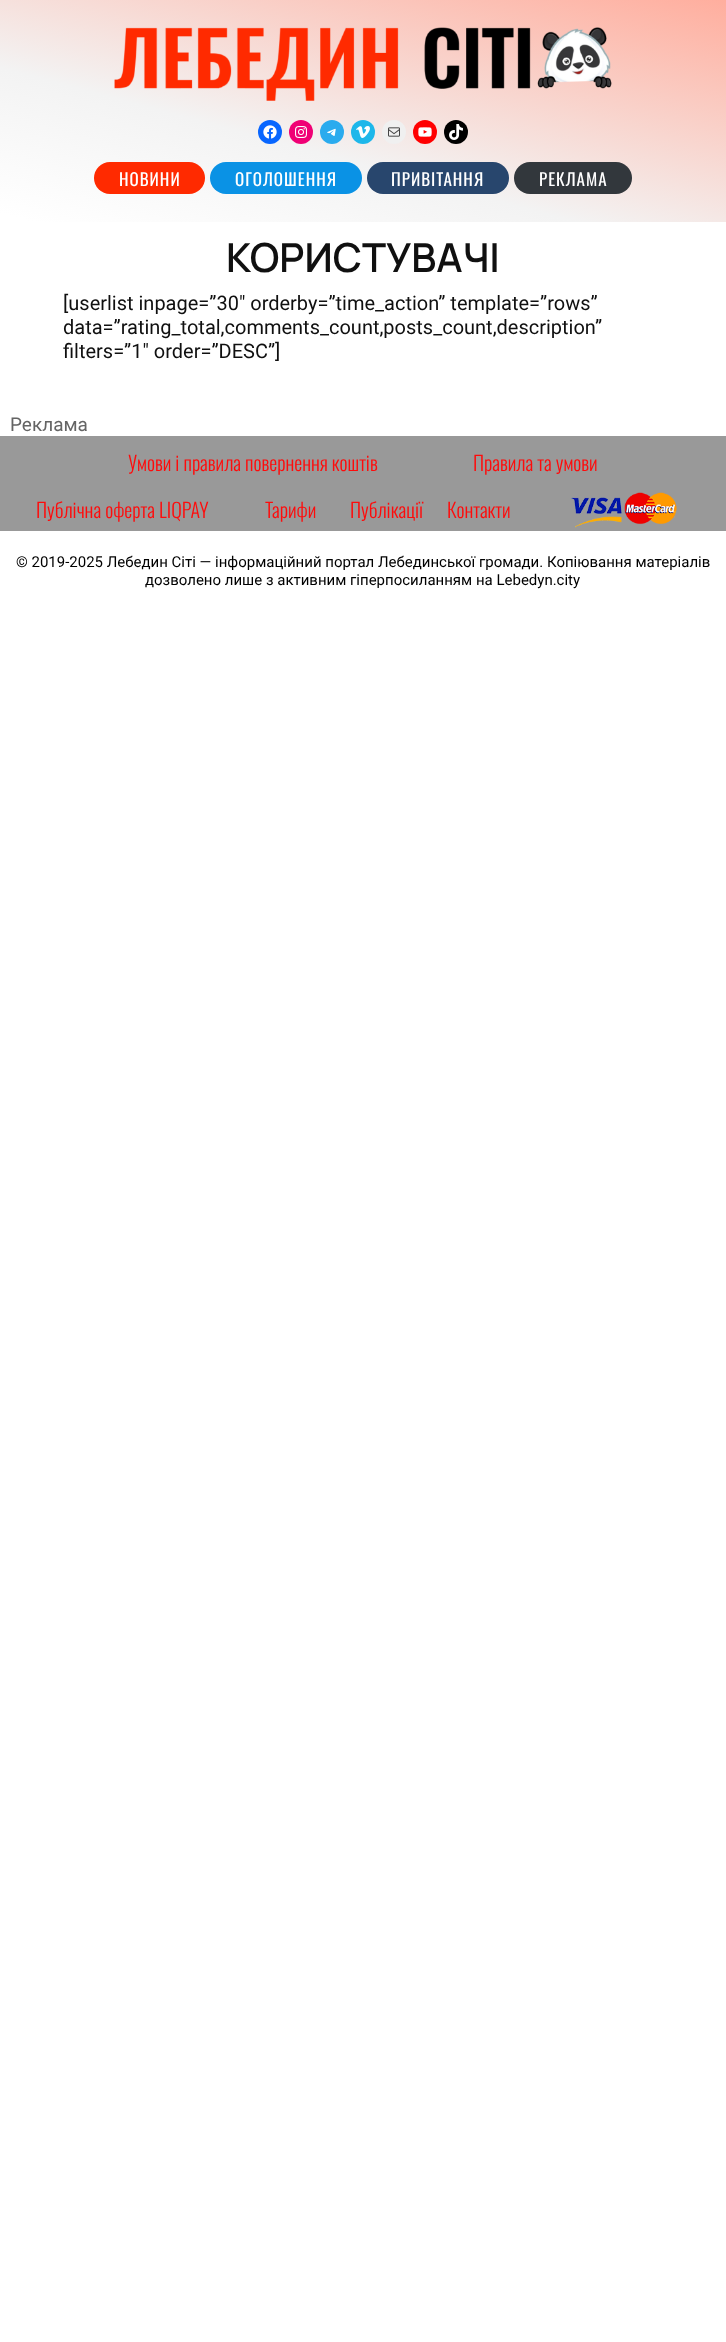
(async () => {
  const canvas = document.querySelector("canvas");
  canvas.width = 726;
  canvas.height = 2342;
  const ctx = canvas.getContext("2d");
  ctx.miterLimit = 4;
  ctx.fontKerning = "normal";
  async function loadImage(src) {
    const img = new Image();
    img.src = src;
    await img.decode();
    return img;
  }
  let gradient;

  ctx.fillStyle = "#ffffff";
  ctx.fillRect(0, 0, 726, 2342);
  gradient = ctx.createLinearGradient(311, 305, 415, -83);
  gradient.addColorStop(0.02, "#ffffff");
  gradient.addColorStop(0.37, "#f3f3f3");
  gradient.addColorStop(1, "#ffae9e");
  ctx.fillStyle = gradient;
  ctx.fillRect(0, 0, 726, 222);
  ctx.drawImage(await loadImage("img/1.png"), 114, 27, 498, 74);
  ctx.fillStyle = "#0866ff";
  ctx.beginPath();
  ctx.arc(270, 132, 12, 0, Math.PI * 2);
  ctx.fill();
  ctx.drawImage(await loadImage("img/2.png"), 263, 125, 14, 14);
  ctx.fillStyle = "#f00075";
  ctx.beginPath();
  ctx.arc(301, 132, 12, 0, Math.PI * 2);
  ctx.fill();
  ctx.drawImage(await loadImage("img/3.png"), 295, 126, 12, 12);
  ctx.fillStyle = "#2aabee";
  ctx.beginPath();
  ctx.arc(332, 132, 12, 0, Math.PI * 2);
  ctx.fill();
  ctx.drawImage(await loadImage("img/4.png"), 327, 128, 9, 8);
  ctx.fillStyle = "#1eb7ea";
  ctx.beginPath();
  ctx.arc(363, 132, 12, 0, Math.PI * 2);
  ctx.fill();
  ctx.drawImage(await loadImage("img/5.png"), 356, 126, 14, 12);
  ctx.fillStyle = "#f0f0f0";
  ctx.beginPath();
  ctx.arc(394, 132, 12, 0, Math.PI * 2);
  ctx.fill();
  ctx.drawImage(await loadImage("img/6.png"), 388, 127, 12, 10);
  ctx.fillStyle = "#ff0000";
  ctx.beginPath();
  ctx.arc(425, 132, 12, 0, Math.PI * 2);
  ctx.fill();
  ctx.drawImage(await loadImage("img/7.png"), 418, 127, 14, 10);
  ctx.fillStyle = "#000000";
  ctx.beginPath();
  ctx.arc(456, 132, 12, 0, Math.PI * 2);
  ctx.fill();
  ctx.drawImage(await loadImage("img/8.png"), 449, 124, 14, 16);
  ctx.fillStyle = "#ff2a00";
  ctx.beginPath();
  ctx.roundRect(94, 162, 111, 32, 16);
  ctx.fill();
  ctx.fillStyle = "#0a92e5";
  ctx.beginPath();
  ctx.roundRect(210, 162, 152, 32, 16);
  ctx.fill();
  ctx.fillStyle = "#28466d";
  ctx.beginPath();
  ctx.roundRect(367, 162, 142, 32, 16);
  ctx.fill();
  ctx.fillStyle = "#32373c";
  ctx.beginPath();
  ctx.roundRect(514, 162, 118, 32, 16);
  ctx.fill();
  ctx.fillStyle = "#999999";
  ctx.fillRect(0, 436, 726, 95);
  ctx.drawImage(await loadImage("img/9.png"), 571, 492, 106, 36);
  ctx.letterSpacing = "1px";
  ctx.font = "17px Oswald";
  ctx.fillStyle = "#ffffff";
  for (const [text, x, y] of [
    ["НОВИНИ", 119, 186],
    ["ОГОЛОШЕННЯ", 235, 186],
    ["ПРИВІТАННЯ", 391, 186],
    ["РЕКЛАМА", 539, 186],
  ]) {
    ctx.fillText(text, x, y);
  }
  ctx.letterSpacing = "0px";
  ctx.font = "600 40px Manrope";
  ctx.fillStyle = "#101010";
  ctx.fillText("КОРИСТУВАЧІ", 226, 272);
  ctx.font = "20px Roboto";
  for (const [text, x, y] of [
    ["[userlist inpage=”30″ orderby=”time_action” template=”rows”", 63, 310],
    ["data=”rating_total,comments_count,posts_count,description”", 63, 334],
    ["filters=”1″ order=”DESC”]", 63, 358],
  ]) {
    ctx.fillText(text, x, y);
  }
  ctx.font = "19px Roboto";
  ctx.fillStyle = "#646464";
  ctx.fillText("Реклама", 10, 431);
  ctx.font = "300 20px Oswald";
  ctx.fillStyle = "#ff0b0b";
  for (const [text, x, y] of [
    ["Умови і правила повернення коштів", 128, 471],
    ["Правила та умови", 473, 471],
    ["Публічна оферта LIQPAY", 36, 518],
    ["Тарифи", 265, 518],
    ["Публікації", 350, 518],
    ["Контакти", 447, 518],
  ]) {
    ctx.fillText(text, x, y);
  }
  ctx.font = "15px Roboto";
  ctx.fillStyle = "#000000";
  ctx.fillText("© 2019-2025 Лебедин Сіті — інформаційний портал Лебединської громади. Копіювання матеріалів", 16, 567);
  ctx.fillText("дозволено лише з активним гіперпосиланням на Lebedyn.city", 145, 585);
})();
